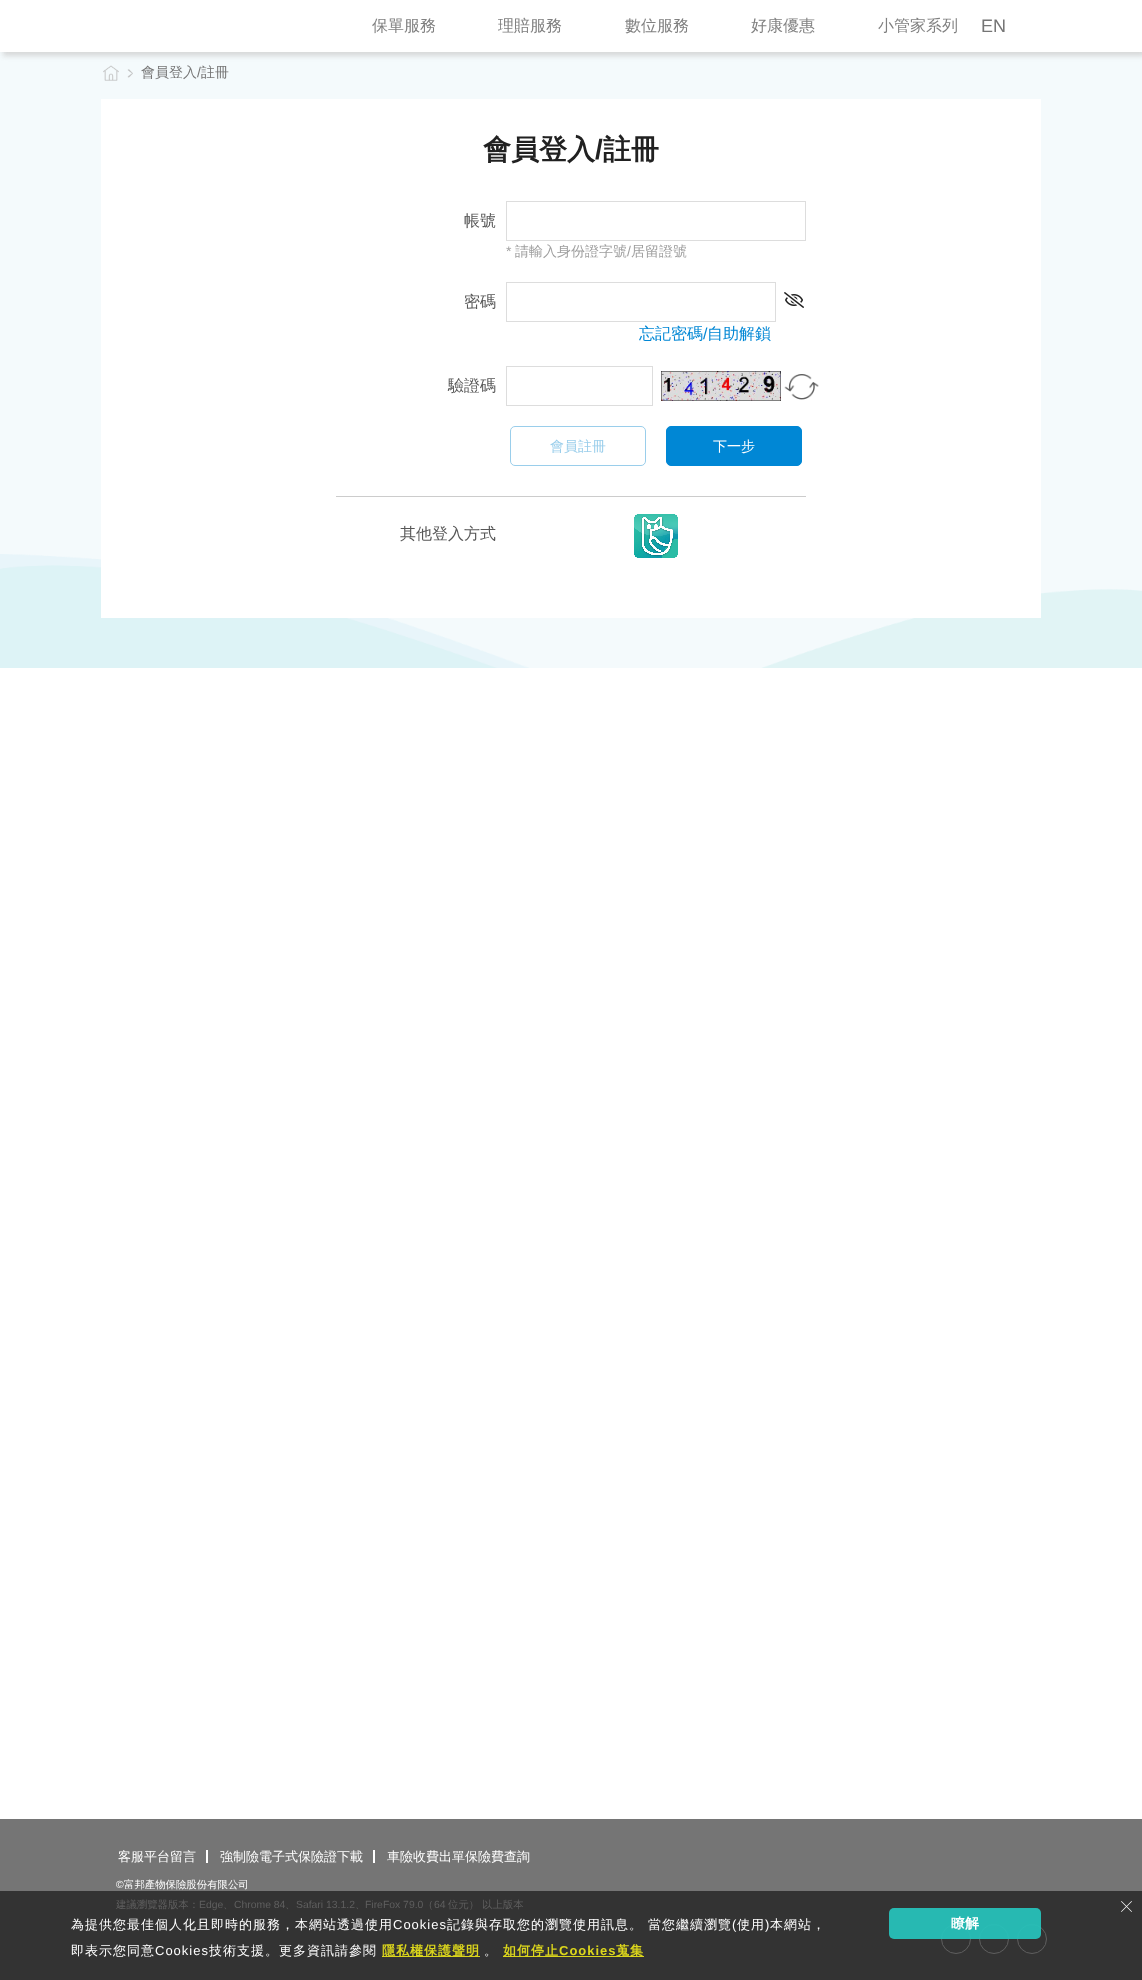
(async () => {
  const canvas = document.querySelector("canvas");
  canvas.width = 1142;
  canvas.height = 1980;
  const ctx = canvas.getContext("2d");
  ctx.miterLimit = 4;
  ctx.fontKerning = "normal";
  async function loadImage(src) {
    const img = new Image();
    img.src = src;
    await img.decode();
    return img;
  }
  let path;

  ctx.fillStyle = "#ffffff";
  ctx.fillRect(0, 0, 1142, 1980);
  ctx.fillStyle = "#f4fafc";
  ctx.fillRect(0, 52, 1142, 616);
  ctx.fillStyle = "rgba(206, 206, 206, 0.75)";
  ctx.filter = "blur(2.5px)";
  ctx.beginPath();
  ctx.rect(3, 4, 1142, 52);
  ctx.fill();
  ctx.filter = "none";
  ctx.fillStyle = "#ffffff";
  ctx.fillRect(0, 0, 1142, 52);
  ctx.drawImage(await loadImage("img/1.png"), 0, 554, 1142, 114);
  ctx.drawImage(await loadImage("img/2.png"), 103, 65, 16, 16);
  ctx.drawImage(await loadImage("img/3.png"), 127, 69, 6, 9);
  ctx.fillRect(101, 99, 940, 519);
  ctx.strokeStyle = "#dddddd";
  ctx.strokeRect(506.5, 201.5, 299, 39);
  ctx.strokeRect(506.5, 282.5, 269, 39);
  ctx.drawImage(await loadImage("img/4.png"), 784, 292, 20, 16);
  ctx.strokeRect(506.5, 366.5, 146, 39);
  ctx.drawImage(await loadImage("img/5.png"), 661, 371, 120, 30);
  ctx.drawImage(await loadImage("img/6.png"), 784, 374, 35, 26);
  ctx.beginPath();
  ctx.roundRect(510.5, 426.5, 135, 39, 4.5);
  ctx.strokeStyle = "#9aceeb";
  ctx.stroke();
  ctx.fillStyle = "#0087d5";
  ctx.beginPath();
  ctx.roundRect(666.5, 426.5, 135, 39, 4.5);
  ctx.fill();
  ctx.strokeStyle = "#0087d5";
  ctx.stroke();
  ctx.fillStyle = "#cccccc";
  ctx.fillRect(336, 496, 470, 1);
  ctx.drawImage(await loadImage("img/7.png"), 634, 514, 44, 44);
  for (const [x, y, w, h, color] of [
    [0, 1819, 1142, 72, "#757575"],
    [0, 1891, 1142, 89, "#333333"],
    [206, 1850, 2, 13, "#ffffff"],
    [373, 1850, 2, 13, "#ffffff"],
  ]) {
    ctx.fillStyle = color;
    ctx.fillRect(x, y, w, h);
  }
  ctx.beginPath();
  ctx.arc(956, 1939, 14.5, 0, Math.PI * 2);
  ctx.strokeStyle = "#5f5f5f";
  ctx.stroke();
  ctx.beginPath();
  ctx.arc(994, 1939, 14.5, 0, Math.PI * 2);
  ctx.stroke();
  ctx.beginPath();
  ctx.arc(1032, 1939, 14.5, 0, Math.PI * 2);
  ctx.stroke();
  path = new Path2D("M1121 1911.5L1131.5 1901L1132 1901.5L1121.5 1912Z");
  ctx.fill(path);
  path = new Path2D("M1121.5 1901L1132 1911.5L1131.5 1912L1121 1901.5Z");
  ctx.fill(path);
  ctx.fillStyle = "#dcd61c";
  ctx.fillRect(382, 1956, 98, 1);
  ctx.fillRect(503, 1956, 141, 1);
  ctx.fillStyle = "rgba(39, 193, 185, 0.95)";
  ctx.beginPath();
  ctx.roundRect(889, 1908, 152, 31, 5);
  ctx.fill();
  ctx.font = "500 16px WenQuanYi Zen Hei";
  ctx.fillStyle = "#808080";
  for (const [text, x, y] of [
    ["保單服務", 372, 31],
    ["理賠服務", 498, 31],
    ["數位服務", 625, 31],
    ["好康優惠", 751, 31],
    ["小管家系列", 878, 31],
  ]) {
    ctx.fillText(text, x, y);
  }
  ctx.font = "18px Liberation Sans";
  ctx.fillStyle = "#757575";
  ctx.fillText("EN", 981, 32);
  ctx.font = "500 14px WenQuanYi Zen Hei";
  ctx.fillText("會員登入", 141, 77);
  ctx.font = "14px Liberation Sans";
  ctx.fillText("/", 197, 77);
  ctx.font = "500 14px WenQuanYi Zen Hei";
  ctx.fillText("註冊", 201, 77);
  ctx.font = "bold 28px WenQuanYi Zen Hei";
  ctx.fillStyle = "#212121";
  ctx.fillText("會員登入", 483, 159);
  ctx.font = "bold 28px Liberation Sans";
  ctx.fillText("/", 595, 159);
  ctx.font = "bold 28px WenQuanYi Zen Hei";
  ctx.fillText("註冊", 603, 159);
  ctx.font = "500 16px WenQuanYi Zen Hei";
  ctx.fillStyle = "#575757";
  ctx.fillText("帳號", 464, 226);
  ctx.font = "14px Liberation Sans";
  ctx.fillStyle = "#9e9e9e";
  ctx.fillText("*", 506, 256);
  ctx.font = "500 14px WenQuanYi Zen Hei";
  ctx.fillText("請輸入身份證字號", 515, 256);
  ctx.font = "14px Liberation Sans";
  ctx.fillText("/", 627, 256);
  ctx.font = "500 14px WenQuanYi Zen Hei";
  ctx.fillText("居留證號", 631, 256);
  ctx.font = "500 16px WenQuanYi Zen Hei";
  ctx.fillStyle = "#575757";
  ctx.fillText("密碼", 464, 307);
  ctx.fillStyle = "#0087d5";
  ctx.fillText("忘記密碼", 639, 339);
  ctx.font = "16px Liberation Sans";
  ctx.fillText("/", 703, 339);
  ctx.font = "500 16px WenQuanYi Zen Hei";
  ctx.fillText("自助解鎖", 707, 339);
  ctx.fillStyle = "#575757";
  ctx.fillText("驗證碼", 448, 391);
  ctx.font = "500 14px WenQuanYi Zen Hei";
  ctx.fillStyle = "#9aceeb";
  ctx.fillText("會員註冊", 550, 451);
  ctx.fillStyle = "#ffffff";
  ctx.fillText("下一步", 713, 451);
  ctx.font = "500 16px WenQuanYi Zen Hei";
  ctx.fillStyle = "#575757";
  ctx.fillText("其他登入方式", 400, 539);
  ctx.font = "500 13px WenQuanYi Zen Hei";
  ctx.fillStyle = "#ffffff";
  for (const [text, x, y] of [
    ["客服平台留言", 118, 1861],
    ["強制險電子式保險證下載", 220, 1861],
    ["車險收費出單保險費查詢", 387, 1861],
  ]) {
    ctx.fillText(text, x, y);
  }
  ctx.font = "10.4px Liberation Sans";
  ctx.fillText("©", 116, 1888);
  ctx.font = "500 10.4px WenQuanYi Zen Hei";
  ctx.fillText("富邦產物保險股份有限公司", 124, 1888);
  ctx.fillStyle = "#5f5f5f";
  ctx.fillText("建議瀏覽器版本：", 116, 1908);
  ctx.font = "10.4px Liberation Sans";
  ctx.fillText("Edge", 199, 1908);
  ctx.font = "500 10.4px WenQuanYi Zen Hei";
  ctx.fillText("、", 223, 1908);
  ctx.font = "10.4px Liberation Sans";
  ctx.fillText("Chrome 84", 234, 1908);
  ctx.font = "500 10.4px WenQuanYi Zen Hei";
  ctx.fillText("、", 285, 1908);
  ctx.font = "10.4px Liberation Sans";
  ctx.fillText("Safari 13.1.2", 296, 1908);
  ctx.font = "500 10.4px WenQuanYi Zen Hei";
  ctx.fillText("、", 355, 1908);
  ctx.font = "10.4px Liberation Sans";
  ctx.fillText("FireFox 79.0", 365, 1908);
  ctx.font = "500 10.4px WenQuanYi Zen Hei";
  ctx.fillText("（", 423, 1908);
  ctx.font = "10.4px Liberation Sans";
  ctx.fillText("64", 434, 1908);
  ctx.font = "500 10.4px WenQuanYi Zen Hei";
  ctx.fillText("位元）", 448, 1908);
  ctx.fillText("以上版本", 482, 1908);
  ctx.letterSpacing = "1px";
  ctx.font = "500 13px WenQuanYi Zen Hei";
  ctx.fillStyle = "#ffffff";
  ctx.fillText("為提供您最佳個人化且即時的服務，本網站透過使用", 71, 1929);
  ctx.font = "13px Liberation Sans";
  ctx.fillText("Cookies", 393, 1929);
  ctx.font = "500 13px WenQuanYi Zen Hei";
  ctx.fillText("記錄與存取您的瀏覽使用訊息。 當您繼續瀏覽", 447, 1929);
  ctx.font = "13px Liberation Sans";
  ctx.fillText("(", 732, 1929);
  ctx.font = "500 13px WenQuanYi Zen Hei";
  ctx.fillText("使用", 737, 1929);
  ctx.font = "13px Liberation Sans";
  ctx.fillText(")", 765, 1929);
  ctx.font = "500 13px WenQuanYi Zen Hei";
  ctx.fillText("本網站，", 770, 1929);
  ctx.fillText("即表示您同意", 71, 1955);
  ctx.font = "13px Liberation Sans";
  ctx.fillText("Cookies", 155, 1955);
  ctx.font = "500 13px WenQuanYi Zen Hei";
  ctx.fillText("技術支援。更多資訊請參閱", 209, 1955);
  ctx.font = "bold 13px WenQuanYi Zen Hei";
  ctx.fillStyle = "#dcd61c";
  ctx.fillText("隱私權保護聲明", 382, 1955);
  ctx.font = "500 13px WenQuanYi Zen Hei";
  ctx.fillStyle = "#ffffff";
  ctx.fillText("。", 484, 1955);
  ctx.font = "bold 13px WenQuanYi Zen Hei";
  ctx.fillStyle = "#dcd61c";
  ctx.fillText("如何停止", 503, 1955);
  ctx.font = "bold 13px Liberation Sans";
  ctx.fillText("Cookies", 559, 1955);
  ctx.font = "bold 13px WenQuanYi Zen Hei";
  ctx.fillText("蒐集", 616, 1955);
  ctx.letterSpacing = "0px";
  ctx.font = "bold 14px WenQuanYi Zen Hei";
  ctx.fillStyle = "#ffffff";
  ctx.fillText("瞭解", 951, 1928);
})();
